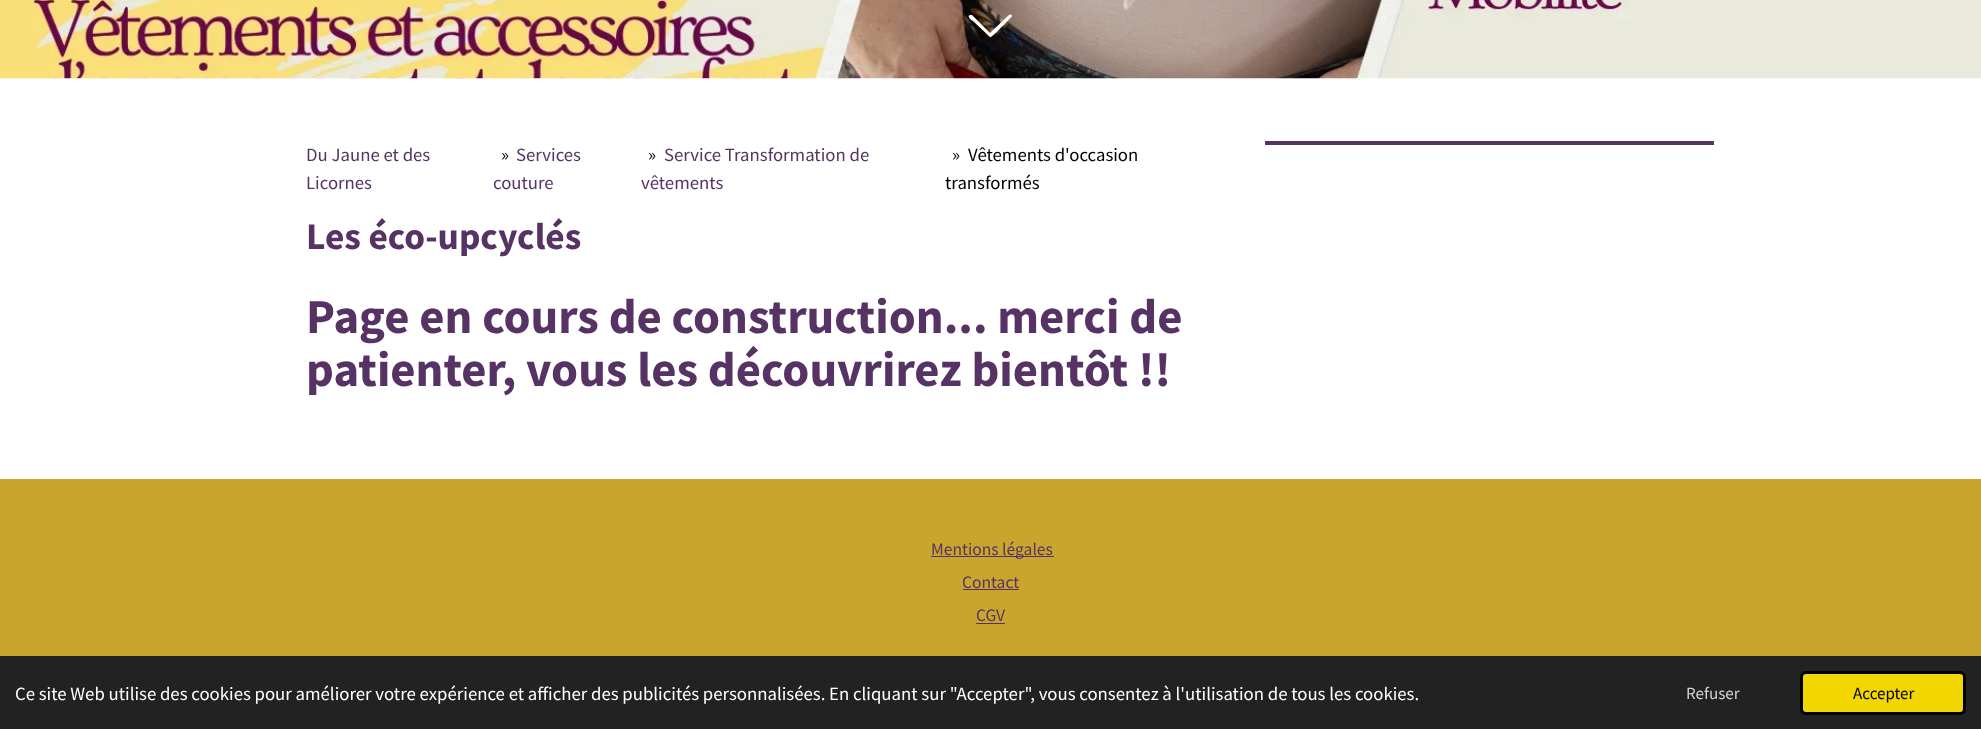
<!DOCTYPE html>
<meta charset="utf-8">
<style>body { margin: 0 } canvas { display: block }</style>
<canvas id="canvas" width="1981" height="729"></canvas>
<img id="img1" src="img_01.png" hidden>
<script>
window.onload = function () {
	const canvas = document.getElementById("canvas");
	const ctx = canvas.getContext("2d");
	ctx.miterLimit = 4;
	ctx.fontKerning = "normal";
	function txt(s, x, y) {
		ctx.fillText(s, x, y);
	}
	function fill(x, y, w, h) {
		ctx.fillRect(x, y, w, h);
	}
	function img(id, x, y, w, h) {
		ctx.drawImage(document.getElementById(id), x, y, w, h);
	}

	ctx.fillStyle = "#FFFFFF";
	fill(0, 0, 1981, 729);
	img("img1", 0, 0, 1981, 79);
	ctx.beginPath();
	ctx.moveTo(972, 15);
	ctx.lineTo(990, 33);
	ctx.lineTo(1009, 15);
	ctx.bezierCurveTo(1010, 14, 1012, 15, 1012, 16);
	ctx.bezierCurveTo(1012, 17, 993, 36, 991, 37);
	ctx.lineTo(990, 37);
	ctx.lineTo(973, 21);
	ctx.bezierCurveTo(972, 21, 966, 16, 970, 15);
	ctx.closePath();
	ctx.fill();
	ctx.fillStyle = "#563364";
	fill(1265, 141, 449, 4);
	ctx.fillStyle = "#C9A52D";
	fill(0, 479, 1981, 177);
	ctx.fillStyle = "#563364";
	fill(931, 556, 123, 1);
	fill(963, 589, 56, 1);
	fill(976, 623, 29, 1);
	ctx.fillStyle = "#222222";
	fill(0, 656, 1981, 73);
	ctx.fillStyle = "#F1D600";
	ctx.beginPath();
	ctx.roundRect(1801.5, 672.5, 163, 41, 4.5);
	ctx.fill();
	ctx.strokeStyle = "#000000";
	ctx.lineWidth = 3;
	ctx.stroke();
	ctx.font = "18.75px Source Sans Pro";
	ctx.fillStyle = "#563364";
	txt("Du Jaune et des", 306, 161);
	txt("Licornes", 306, 189);
	ctx.fillStyle = "#000000";
	txt("»", 501, 161);
	ctx.fillStyle = "#563364";
	txt("Services", 516, 161);
	txt("couture", 493, 189);
	ctx.fillStyle = "#000000";
	txt("»", 648, 161);
	ctx.fillStyle = "#563364";
	txt("Service Transformation de", 664, 161);
	txt("vêtements", 641, 189);
	ctx.fillStyle = "#000000";
	txt("»", 952, 161);
	txt("Vêtements d'occasion", 968, 161);
	txt("transformés", 945, 189);
	ctx.font = "bold 37.5px Source Sans Pro";
	ctx.fillStyle = "#563364";
	txt("Les éco-upcyclés", 306, 249);
	ctx.font = "bold 48.75px Source Sans Pro";
	txt("Page en cours de construction... merci de", 306, 333);
	txt("patienter, vous les découvrirez bientôt !!", 306, 386);
	ctx.font = "17.5px Source Sans Pro";
	txt("Mentions légales", 931, 555);
	txt("Contact", 962, 588);
	txt("CGV", 976, 621);
	ctx.font = "18.75px Source Sans Pro";
	ctx.fillStyle = "#FFFFFF";
	txt("Ce site Web utilise des cookies pour améliorer votre expérience et afficher des publicités personnalisées. En cliquant sur \"Accepter\", vous consentez à l'utilisation de tous les cookies.", 15, 700);
	ctx.font = "17px Source Sans Pro";
	ctx.fillStyle = "#D3D3D3";
	txt("Refuser", 1686, 699);
	ctx.fillStyle = "#000000";
	txt("Accepter", 1853, 699);
};
</script>
